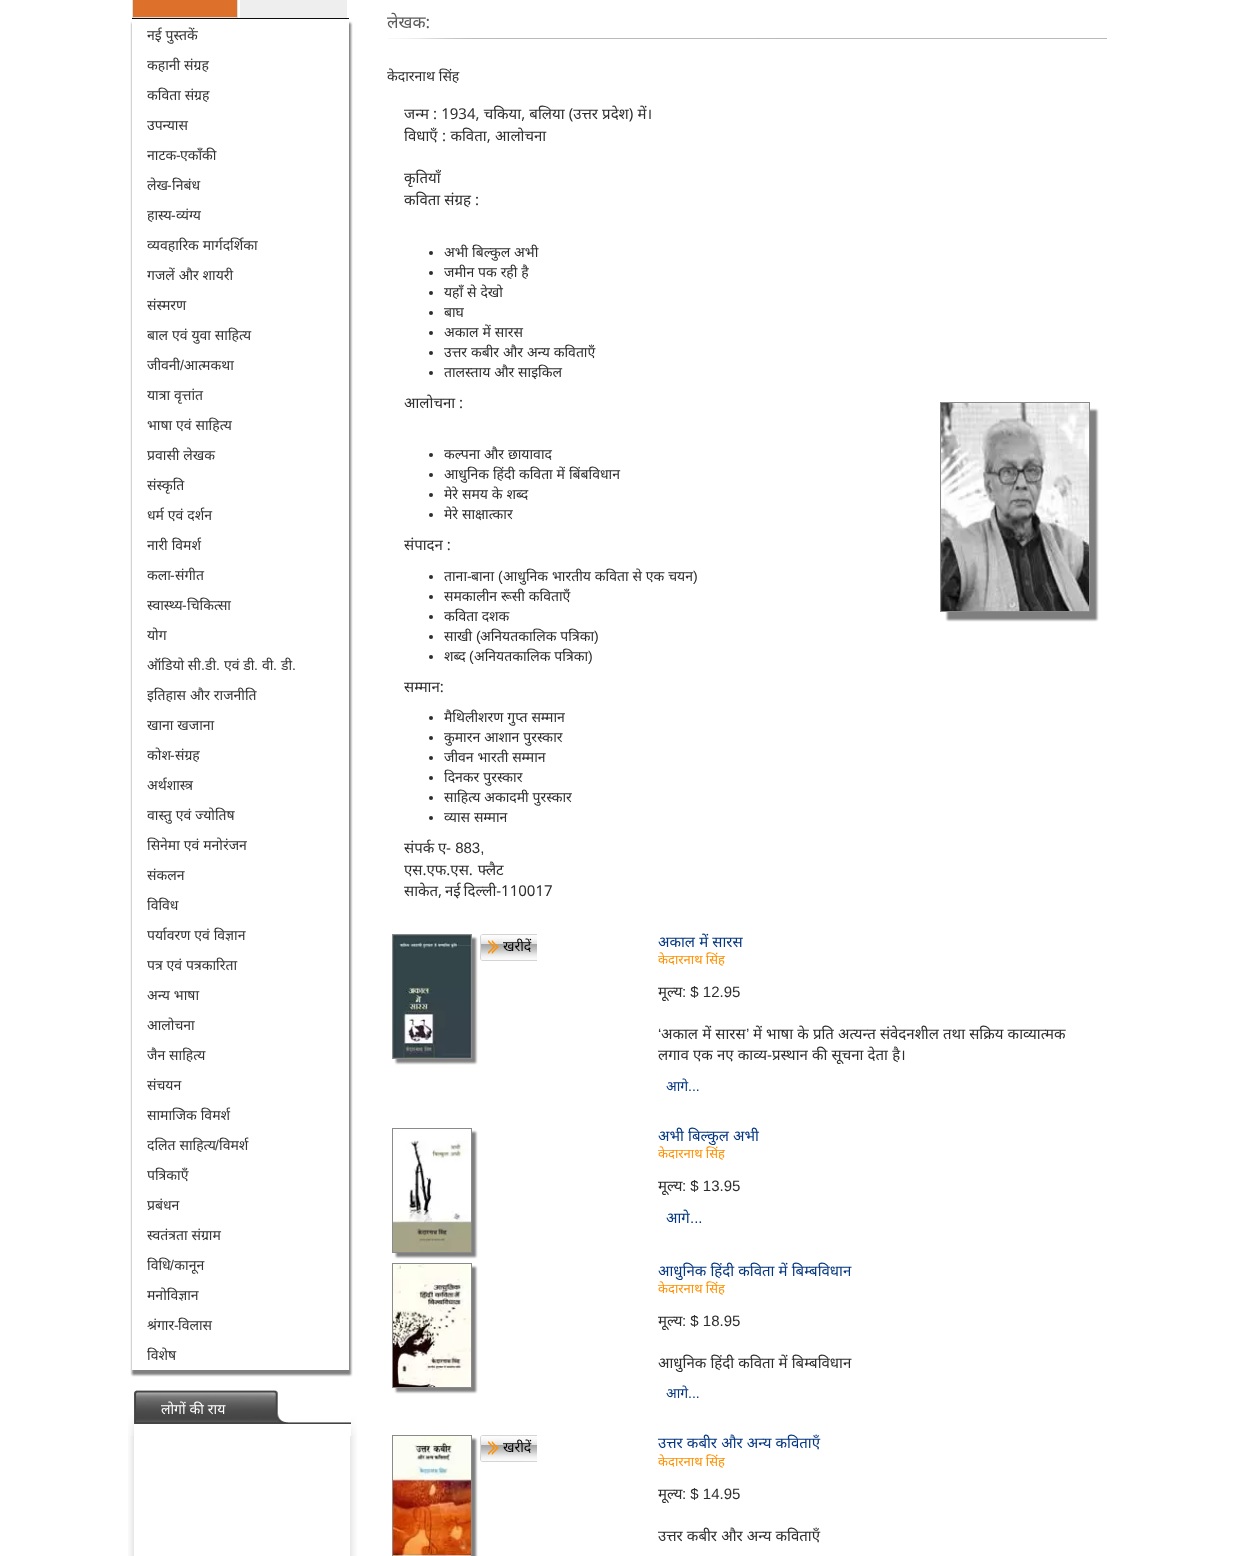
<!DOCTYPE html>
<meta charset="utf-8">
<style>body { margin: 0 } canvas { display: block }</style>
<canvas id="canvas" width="1233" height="1556"></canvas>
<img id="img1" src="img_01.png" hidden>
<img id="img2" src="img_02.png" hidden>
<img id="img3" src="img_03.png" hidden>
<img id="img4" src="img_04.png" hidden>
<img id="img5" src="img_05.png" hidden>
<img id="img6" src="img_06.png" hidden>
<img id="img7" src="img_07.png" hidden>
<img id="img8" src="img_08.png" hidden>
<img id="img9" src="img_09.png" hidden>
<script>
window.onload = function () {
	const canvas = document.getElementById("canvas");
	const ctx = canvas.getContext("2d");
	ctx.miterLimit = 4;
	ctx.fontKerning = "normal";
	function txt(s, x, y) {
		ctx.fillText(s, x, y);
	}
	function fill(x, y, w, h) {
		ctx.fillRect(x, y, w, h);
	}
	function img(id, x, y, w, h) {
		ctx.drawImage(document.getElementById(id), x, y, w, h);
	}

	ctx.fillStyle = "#FFFFFF";
	fill(0, 0, 1233, 1556);
	ctx.fillStyle = "#0E0D0D";
	fill(132, 18, 217, 1);
	ctx.fillStyle = "#DD712C";
	ctx.beginPath();
	ctx.rect(132.5, -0.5, 105, 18);
	ctx.fill();
	ctx.strokeStyle = "#DDDDDD";
	ctx.stroke();
	ctx.fillStyle = "#EEEEEE";
	fill(240, 0, 107, 18);
	ctx.save();
	ctx.beginPath();
	ctx.moveTo(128, 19);
	ctx.lineTo(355, 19);
	ctx.lineTo(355, 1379);
	ctx.lineTo(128, 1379);
	ctx.closePath();
	ctx.moveTo(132, 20);
	ctx.lineTo(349, 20);
	ctx.lineTo(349, 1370);
	ctx.lineTo(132, 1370);
	ctx.closePath();
	ctx.clip("evenodd");
	ctx.fillStyle = "rgba(42, 41, 41, 0.6)";
	ctx.filter = "blur(1px)";
	ctx.beginPath();
	ctx.rect(132, 23, 219, 1352);
	ctx.fill();
	ctx.filter = "none";
	ctx.restore();
	img("img1", 128, 1436, 229, 120);
	img("img2", 128, 1390, 229, 46);
	img("img3", 388, 38, 719, 1);
	ctx.fillStyle = "#2D2D2D";
	ctx.beginPath();
	ctx.arc(431, 253, 2, 0, Math.PI * 2);
	ctx.fill();
	ctx.beginPath();
	ctx.arc(431, 273, 2, 0, Math.PI * 2);
	ctx.fill();
	ctx.beginPath();
	ctx.arc(431, 293, 2, 0, Math.PI * 2);
	ctx.fill();
	ctx.beginPath();
	ctx.arc(431, 313, 2, 0, Math.PI * 2);
	ctx.fill();
	ctx.beginPath();
	ctx.arc(431, 333, 2, 0, Math.PI * 2);
	ctx.fill();
	ctx.beginPath();
	ctx.arc(431, 353, 2, 0, Math.PI * 2);
	ctx.fill();
	ctx.beginPath();
	ctx.arc(431, 373, 2, 0, Math.PI * 2);
	ctx.fill();
	ctx.beginPath();
	ctx.arc(431, 455, 2, 0, Math.PI * 2);
	ctx.fill();
	ctx.beginPath();
	ctx.arc(431, 475, 2, 0, Math.PI * 2);
	ctx.fill();
	ctx.beginPath();
	ctx.arc(431, 495, 2, 0, Math.PI * 2);
	ctx.fill();
	ctx.beginPath();
	ctx.arc(431, 515, 2, 0, Math.PI * 2);
	ctx.fill();
	ctx.beginPath();
	ctx.arc(431, 577, 2, 0, Math.PI * 2);
	ctx.fill();
	ctx.beginPath();
	ctx.arc(431, 597, 2, 0, Math.PI * 2);
	ctx.fill();
	ctx.beginPath();
	ctx.arc(431, 617, 2, 0, Math.PI * 2);
	ctx.fill();
	ctx.beginPath();
	ctx.arc(431, 637, 2, 0, Math.PI * 2);
	ctx.fill();
	ctx.beginPath();
	ctx.arc(431, 657, 2, 0, Math.PI * 2);
	ctx.fill();
	ctx.beginPath();
	ctx.arc(431, 718, 2, 0, Math.PI * 2);
	ctx.fill();
	ctx.beginPath();
	ctx.arc(431, 738, 2, 0, Math.PI * 2);
	ctx.fill();
	ctx.beginPath();
	ctx.arc(431, 758, 2, 0, Math.PI * 2);
	ctx.fill();
	ctx.beginPath();
	ctx.arc(431, 778, 2, 0, Math.PI * 2);
	ctx.fill();
	ctx.beginPath();
	ctx.arc(431, 798, 2, 0, Math.PI * 2);
	ctx.fill();
	ctx.beginPath();
	ctx.arc(431, 818, 2, 0, Math.PI * 2);
	ctx.fill();
	ctx.fillStyle = "rgba(42, 41, 41, 0.6)";
	ctx.filter = "blur(1px)";
	ctx.beginPath();
	ctx.rect(947, 410, 150, 210);
	ctx.fill();
	ctx.filter = "none";
	ctx.strokeStyle = "#8A8A8A";
	ctx.strokeRect(940.5, 402.5, 149, 209);
	img("img4", 941, 403, 148, 208);
	ctx.filter = "blur(1px)";
	ctx.beginPath();
	ctx.rect(396, 938, 80, 125);
	ctx.fill();
	ctx.filter = "none";
	ctx.strokeRect(392.5, 934.5, 79, 124);
	img("img5", 393, 935, 78, 123);
	img("img6", 480, 934, 57, 27);
	ctx.save();
	ctx.beginPath();
	ctx.moveTo(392, 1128);
	ctx.lineTo(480, 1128);
	ctx.lineTo(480, 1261);
	ctx.lineTo(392, 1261);
	ctx.closePath();
	ctx.moveTo(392, 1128);
	ctx.lineTo(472, 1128);
	ctx.lineTo(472, 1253);
	ctx.lineTo(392, 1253);
	ctx.closePath();
	ctx.clip("evenodd");
	ctx.filter = "blur(1px)";
	ctx.beginPath();
	ctx.rect(396, 1132, 80, 125);
	ctx.fill();
	ctx.filter = "none";
	ctx.restore();
	ctx.strokeRect(392.5, 1128.5, 79, 124);
	img("img7", 393, 1140, 78, 112);
	ctx.filter = "blur(1px)";
	ctx.beginPath();
	ctx.rect(396, 1267, 80, 125);
	ctx.fill();
	ctx.filter = "none";
	ctx.strokeRect(392.5, 1263.5, 79, 124);
	img("img8", 393, 1264, 78, 123);
	ctx.filter = "blur(1px)";
	ctx.beginPath();
	ctx.rect(396, 1439, 80, 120);
	ctx.fill();
	ctx.filter = "none";
	ctx.strokeRect(392.5, 1435.5, 79, 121);
	img("img9", 393, 1436, 78, 120);
	img("img6", 480, 1435, 57, 27);
	ctx.wordSpacing = "0.25px";
	ctx.font = "14px Noto Sans";
	ctx.fillStyle = "#333333";
	txt("नई पुस्तकें", 147, 40);
	txt("कहानी संग्रह", 147, 70);
	txt("कविता संग्रह", 147, 100);
	ctx.wordSpacing = "0px";
	txt("उपन्यास", 147, 130);
	txt("नाटक", 147, 160);
	ctx.font = "14px Liberation Sans";
	txt("-", 176, 160);
	ctx.font = "14px Noto Sans";
	txt("एकाँकी", 180, 160);
	txt("लेख", 147, 190);
	ctx.font = "14px Liberation Sans";
	txt("-", 167, 190);
	ctx.font = "14px Noto Sans";
	txt("निबंध", 172, 190);
	txt("हास्य", 147, 220);
	ctx.font = "14px Liberation Sans";
	txt("-", 171, 220);
	ctx.font = "14px Noto Sans";
	txt("व्यंग्य", 176, 220);
	ctx.wordSpacing = "0.25px";
	txt("व्यवहारिक मार्गदर्शिका", 147, 250);
	txt("गजलें और शायरी", 147, 280);
	ctx.wordSpacing = "0px";
	txt("संस्मरण", 147, 310);
	ctx.wordSpacing = "0.25px";
	txt("बाल एवं युवा साहित्य", 147, 340);
	ctx.wordSpacing = "0px";
	txt("जीवनी आत्मकथा", 147, 370);
	ctx.font = "14px Liberation Sans";
	txt("/", 180, 370);
	ctx.wordSpacing = "0.25px";
	ctx.font = "14px Noto Sans";
	txt("यात्रा वृत्तांत", 147, 400);
	txt("भाषा एवं साहित्य", 147, 430);
	txt("प्रवासी लेखक", 147, 460);
	ctx.wordSpacing = "0px";
	txt("संस्कृति", 147, 490);
	ctx.wordSpacing = "0.25px";
	txt("धर्म एवं दर्शन", 147, 520);
	txt("नारी विमर्श", 147, 550);
	ctx.wordSpacing = "0px";
	txt("कला", 147, 580);
	ctx.font = "14px Liberation Sans";
	txt("-", 170, 580);
	ctx.font = "14px Noto Sans";
	txt("संगीत", 175, 580);
	txt("स्वास्थ्य", 147, 610);
	ctx.font = "14px Liberation Sans";
	txt("-", 182, 610);
	ctx.font = "14px Noto Sans";
	txt("चिकित्सा", 187, 610);
	txt("योग", 147, 640);
	txt("ऑडियो सी", 147, 670);
	txt("एवं डी", 224, 670);
	txt("वी", 262, 670);
	txt("डी", 281, 670);
	ctx.font = "14px Liberation Sans";
	txt(".", 201, 670);
	ctx.font = "14px Noto Sans";
	txt("डी", 205, 670);
	ctx.font = "14px Liberation Sans";
	txt(".", 216, 670);
	txt(".", 254, 670);
	txt(".", 273, 670);
	txt(".", 292, 670);
	ctx.wordSpacing = "0.25px";
	ctx.font = "14px Noto Sans";
	txt("इतिहास और राजनीति", 147, 700);
	txt("खाना खजाना", 147, 730);
	ctx.wordSpacing = "0px";
	txt("कोश", 147, 760);
	ctx.font = "14px Liberation Sans";
	txt("-", 170, 760);
	ctx.font = "14px Noto Sans";
	txt("संग्रह", 175, 760);
	txt("अर्थशास्त्र", 147, 790);
	ctx.wordSpacing = "0.25px";
	txt("वास्तु एवं ज्योतिष", 147, 820);
	txt("सिनेमा एवं मनोरंजन", 147, 850);
	ctx.wordSpacing = "0px";
	txt("संकलन", 147, 880);
	txt("विविध", 147, 910);
	ctx.wordSpacing = "0.25px";
	txt("पर्यावरण एवं विज्ञान", 147, 940);
	txt("पत्र एवं पत्रकारिता", 147, 970);
	txt("अन्य भाषा", 147, 1000);
	ctx.wordSpacing = "0px";
	txt("आलोचना", 147, 1030);
	ctx.wordSpacing = "0.25px";
	txt("जैन साहित्य", 147, 1060);
	ctx.wordSpacing = "0px";
	txt("संचयन", 147, 1090);
	ctx.wordSpacing = "0.25px";
	txt("सामाजिक विमर्श", 147, 1120);
	txt("दलित साहित्य", 147, 1150);
	ctx.wordSpacing = "0px";
	ctx.font = "14px Liberation Sans";
	txt("/", 215, 1150);
	ctx.font = "14px Noto Sans";
	txt("विमर्श", 219, 1150);
	txt("पत्रिकाएँ", 147, 1180);
	txt("प्रबंधन", 147, 1210);
	ctx.wordSpacing = "0.25px";
	txt("स्वतंत्रता संग्राम", 147, 1240);
	ctx.wordSpacing = "0px";
	txt("विधि कानून", 147, 1270);
	ctx.font = "14px Liberation Sans";
	txt("/", 170, 1270);
	ctx.font = "14px Noto Sans";
	txt("मनोविज्ञान", 147, 1300);
	txt("श्रंगार", 147, 1330);
	ctx.font = "14px Liberation Sans";
	txt("-", 174, 1330);
	ctx.font = "14px Noto Sans";
	txt("विलास", 178, 1330);
	txt("विशेष", 147, 1360);
	ctx.wordSpacing = "0.25px";
	ctx.fillStyle = "#FFFFFF";
	txt("लोगों की राय", 161, 1414);
	ctx.wordSpacing = "0px";
	ctx.font = "17px Noto Sans";
	ctx.fillStyle = "#5A5A5A";
	txt("लेखक:", 387, 28);
	ctx.wordSpacing = "0.25px";
	ctx.font = "14px Noto Sans";
	ctx.fillStyle = "#2D2D2D";
	txt("केदारनाथ सिंह", 387, 81);
	ctx.font = "15px Noto Sans";
	txt("जन्म : 1934, चकिया, बलिया (उत्तर प्रदेश) में।", 404, 119);
	ctx.wordSpacing = "0.5px";
	txt("विधाएँ : कविता, आलोचना", 404, 141);
	ctx.wordSpacing = "0px";
	txt("कृतियाँ", 404, 183);
	ctx.wordSpacing = "0.25px";
	txt("कविता संग्रह :", 404, 205);
	ctx.font = "14px Noto Sans";
	txt("अभी बिल्कुल अभी", 444, 257);
	txt("जमीन पक रही है", 444, 277);
	txt("यहाँ से देखो", 444, 297);
	ctx.wordSpacing = "0px";
	txt("बाघ", 444, 317);
	ctx.wordSpacing = "0.25px";
	txt("अकाल में सारस", 444, 337);
	txt("उत्तर कबीर और अन्य कविताएँ", 444, 357);
	txt("तालस्ताय और साइकिल", 444, 377);
	ctx.wordSpacing = "0px";
	ctx.font = "15px Noto Sans";
	txt("आलोचना :", 404, 408);
	ctx.wordSpacing = "0.25px";
	ctx.font = "14px Noto Sans";
	txt("कल्पना और छायावाद", 444, 459);
	txt("आधुनिक हिंदी कविता में बिंबविधान", 444, 479);
	txt("मेरे समय के शब्द", 444, 499);
	txt("मेरे साक्षात्कार", 444, 519);
	ctx.wordSpacing = "0px";
	ctx.font = "15px Noto Sans";
	txt("संपादन :", 404, 550);
	ctx.font = "14px Noto Sans";
	txt("ताना", 444, 581);
	ctx.font = "14px Liberation Sans";
	txt("-", 467, 581);
	ctx.font = "14px Noto Sans";
	txt("बाना", 471, 581);
	ctx.font = "14px Liberation Sans";
	txt("(", 498, 581);
	ctx.wordSpacing = "0.25px";
	ctx.font = "14px Noto Sans";
	txt("आधुनिक भारतीय कविता से एक चयन", 503, 581);
	ctx.wordSpacing = "0px";
	ctx.font = "14px Liberation Sans";
	txt(")", 693, 581);
	ctx.wordSpacing = "0.25px";
	ctx.font = "14px Noto Sans";
	txt("समकालीन रूसी कविताएँ", 444, 601);
	txt("कविता दशक", 444, 621);
	ctx.wordSpacing = "0px";
	txt("साखी", 444, 641);
	ctx.font = "14px Liberation Sans";
	txt("(", 476, 641);
	ctx.wordSpacing = "0.25px";
	ctx.font = "14px Noto Sans";
	txt("अनियतकालिक पत्रिका", 480, 641);
	ctx.wordSpacing = "0px";
	ctx.font = "14px Liberation Sans";
	txt(")", 594, 641);
	ctx.font = "14px Noto Sans";
	txt("शब्द", 444, 661);
	ctx.font = "14px Liberation Sans";
	txt("(", 469, 661);
	ctx.wordSpacing = "0.25px";
	ctx.font = "14px Noto Sans";
	txt("अनियतकालिक पत्रिका", 474, 661);
	ctx.wordSpacing = "0px";
	ctx.font = "14px Liberation Sans";
	txt(")", 588, 661);
	ctx.font = "15px Noto Sans";
	txt("सम्मान:", 404, 692);
	ctx.wordSpacing = "0.25px";
	ctx.font = "14px Noto Sans";
	txt("मैथिलीशरण गुप्त सम्मान", 444, 722);
	txt("कुमारन आशान पुरस्कार", 444, 742);
	txt("जीवन भारती सम्मान", 444, 762);
	txt("दिनकर पुरस्कार", 444, 782);
	txt("साहित्य अकादमी पुरस्कार", 444, 802);
	txt("व्यास सम्मान", 444, 822);
	ctx.wordSpacing = "0px";
	ctx.font = "15px Noto Sans";
	txt("संपर्क ए", 404, 853);
	ctx.font = "15px Liberation Sans";
	txt("- 883,", 446, 853);
	ctx.wordSpacing = "1px";
	ctx.font = "15px Noto Sans";
	txt("एस.एफ.एस. फ्लैट", 404, 875);
	ctx.wordSpacing = "-1px";
	txt("साकेत, नई दिल्ली-110017", 404, 896);
	ctx.wordSpacing = "0px";
	ctx.font = "14px Noto Sans";
	ctx.fillStyle = "#000000";
	txt("खरीदें", 503, 951);
	ctx.wordSpacing = "0.25px";
	ctx.font = "15px Noto Sans";
	ctx.fillStyle = "#053680";
	txt("अकाल में सारस", 658, 947);
	ctx.wordSpacing = "0px";
	ctx.font = "13px Noto Sans";
	ctx.fillStyle = "#FF9000";
	txt("केदारनाथ सिंह", 658, 964);
	ctx.font = "15px Noto Sans";
	ctx.fillStyle = "#2D2D2D";
	txt("मूल्य", 658, 997);
	ctx.font = "15px Liberation Sans";
	txt(": $ 12.95", 682, 997);
	txt("‘", 658, 1039);
	ctx.wordSpacing = "0.25px";
	ctx.font = "15px Noto Sans";
	txt("अकाल में सारस", 661, 1039);
	ctx.wordSpacing = "0px";
	ctx.font = "15px Liberation Sans";
	txt("’", 746, 1039);
	ctx.wordSpacing = "0.25px";
	ctx.font = "15px Noto Sans";
	txt("में भाषा के प्रति अत्यन्त संवेदनशील तथा सक्रिय काव्यात्मक", 753, 1039);
	txt("लगाव एक नए काव्य", 658, 1060);
	ctx.wordSpacing = "0px";
	ctx.font = "15px Liberation Sans";
	txt("-", 767, 1060);
	ctx.wordSpacing = "0.25px";
	ctx.font = "15px Noto Sans";
	txt("प्रस्थान की सूचना देता है।", 772, 1060);
	ctx.wordSpacing = "0px";
	ctx.font = "14px Noto Sans";
	ctx.fillStyle = "#053680";
	txt("आगे", 666, 1091);
	ctx.font = "14px Liberation Sans";
	txt("...", 688, 1091);
	ctx.wordSpacing = "0.25px";
	ctx.font = "15px Noto Sans";
	txt("अभी बिल्कुल अभी", 658, 1141);
	ctx.wordSpacing = "0px";
	ctx.font = "13px Noto Sans";
	ctx.fillStyle = "#FF9000";
	txt("केदारनाथ सिंह", 658, 1158);
	ctx.font = "15px Noto Sans";
	ctx.fillStyle = "#2D2D2D";
	txt("मूल्य", 658, 1191);
	ctx.font = "15px Liberation Sans";
	txt(": $ 13.95", 682, 1191);
	ctx.font = "15px Noto Sans";
	ctx.fillStyle = "#053680";
	txt("आगे", 666, 1223);
	ctx.font = "15px Liberation Sans";
	txt("...", 690, 1223);
	ctx.wordSpacing = "0.25px";
	ctx.font = "15px Noto Sans";
	txt("आधुनिक हिंदी कविता में बिम्बविधान", 658, 1276);
	ctx.wordSpacing = "0px";
	ctx.font = "13px Noto Sans";
	ctx.fillStyle = "#FF9000";
	txt("केदारनाथ सिंह", 658, 1293);
	ctx.font = "15px Noto Sans";
	ctx.fillStyle = "#2D2D2D";
	txt("मूल्य", 658, 1326);
	ctx.font = "15px Liberation Sans";
	txt(": $ 18.95", 682, 1326);
	ctx.wordSpacing = "0.25px";
	ctx.font = "15px Noto Sans";
	txt("आधुनिक हिंदी कविता में बिम्बविधान", 658, 1368);
	ctx.wordSpacing = "0px";
	ctx.font = "14px Noto Sans";
	ctx.fillStyle = "#053680";
	txt("आगे", 666, 1398);
	ctx.font = "14px Liberation Sans";
	txt("...", 688, 1398);
	ctx.font = "14px Noto Sans";
	ctx.fillStyle = "#000000";
	txt("खरीदें", 503, 1452);
	ctx.wordSpacing = "0.25px";
	ctx.font = "15px Noto Sans";
	ctx.fillStyle = "#053680";
	txt("उत्तर कबीर और अन्य कविताएँ", 658, 1448);
	ctx.wordSpacing = "0px";
	ctx.font = "13px Noto Sans";
	ctx.fillStyle = "#FF9000";
	txt("केदारनाथ सिंह", 658, 1466);
	ctx.font = "15px Noto Sans";
	ctx.fillStyle = "#2D2D2D";
	txt("मूल्य", 658, 1499);
	ctx.font = "15px Liberation Sans";
	txt(": $ 14.95", 682, 1499);
	ctx.wordSpacing = "0.25px";
	ctx.font = "15px Noto Sans";
	txt("उत्तर कबीर और अन्य कविताएँ", 658, 1541);
};
</script>
